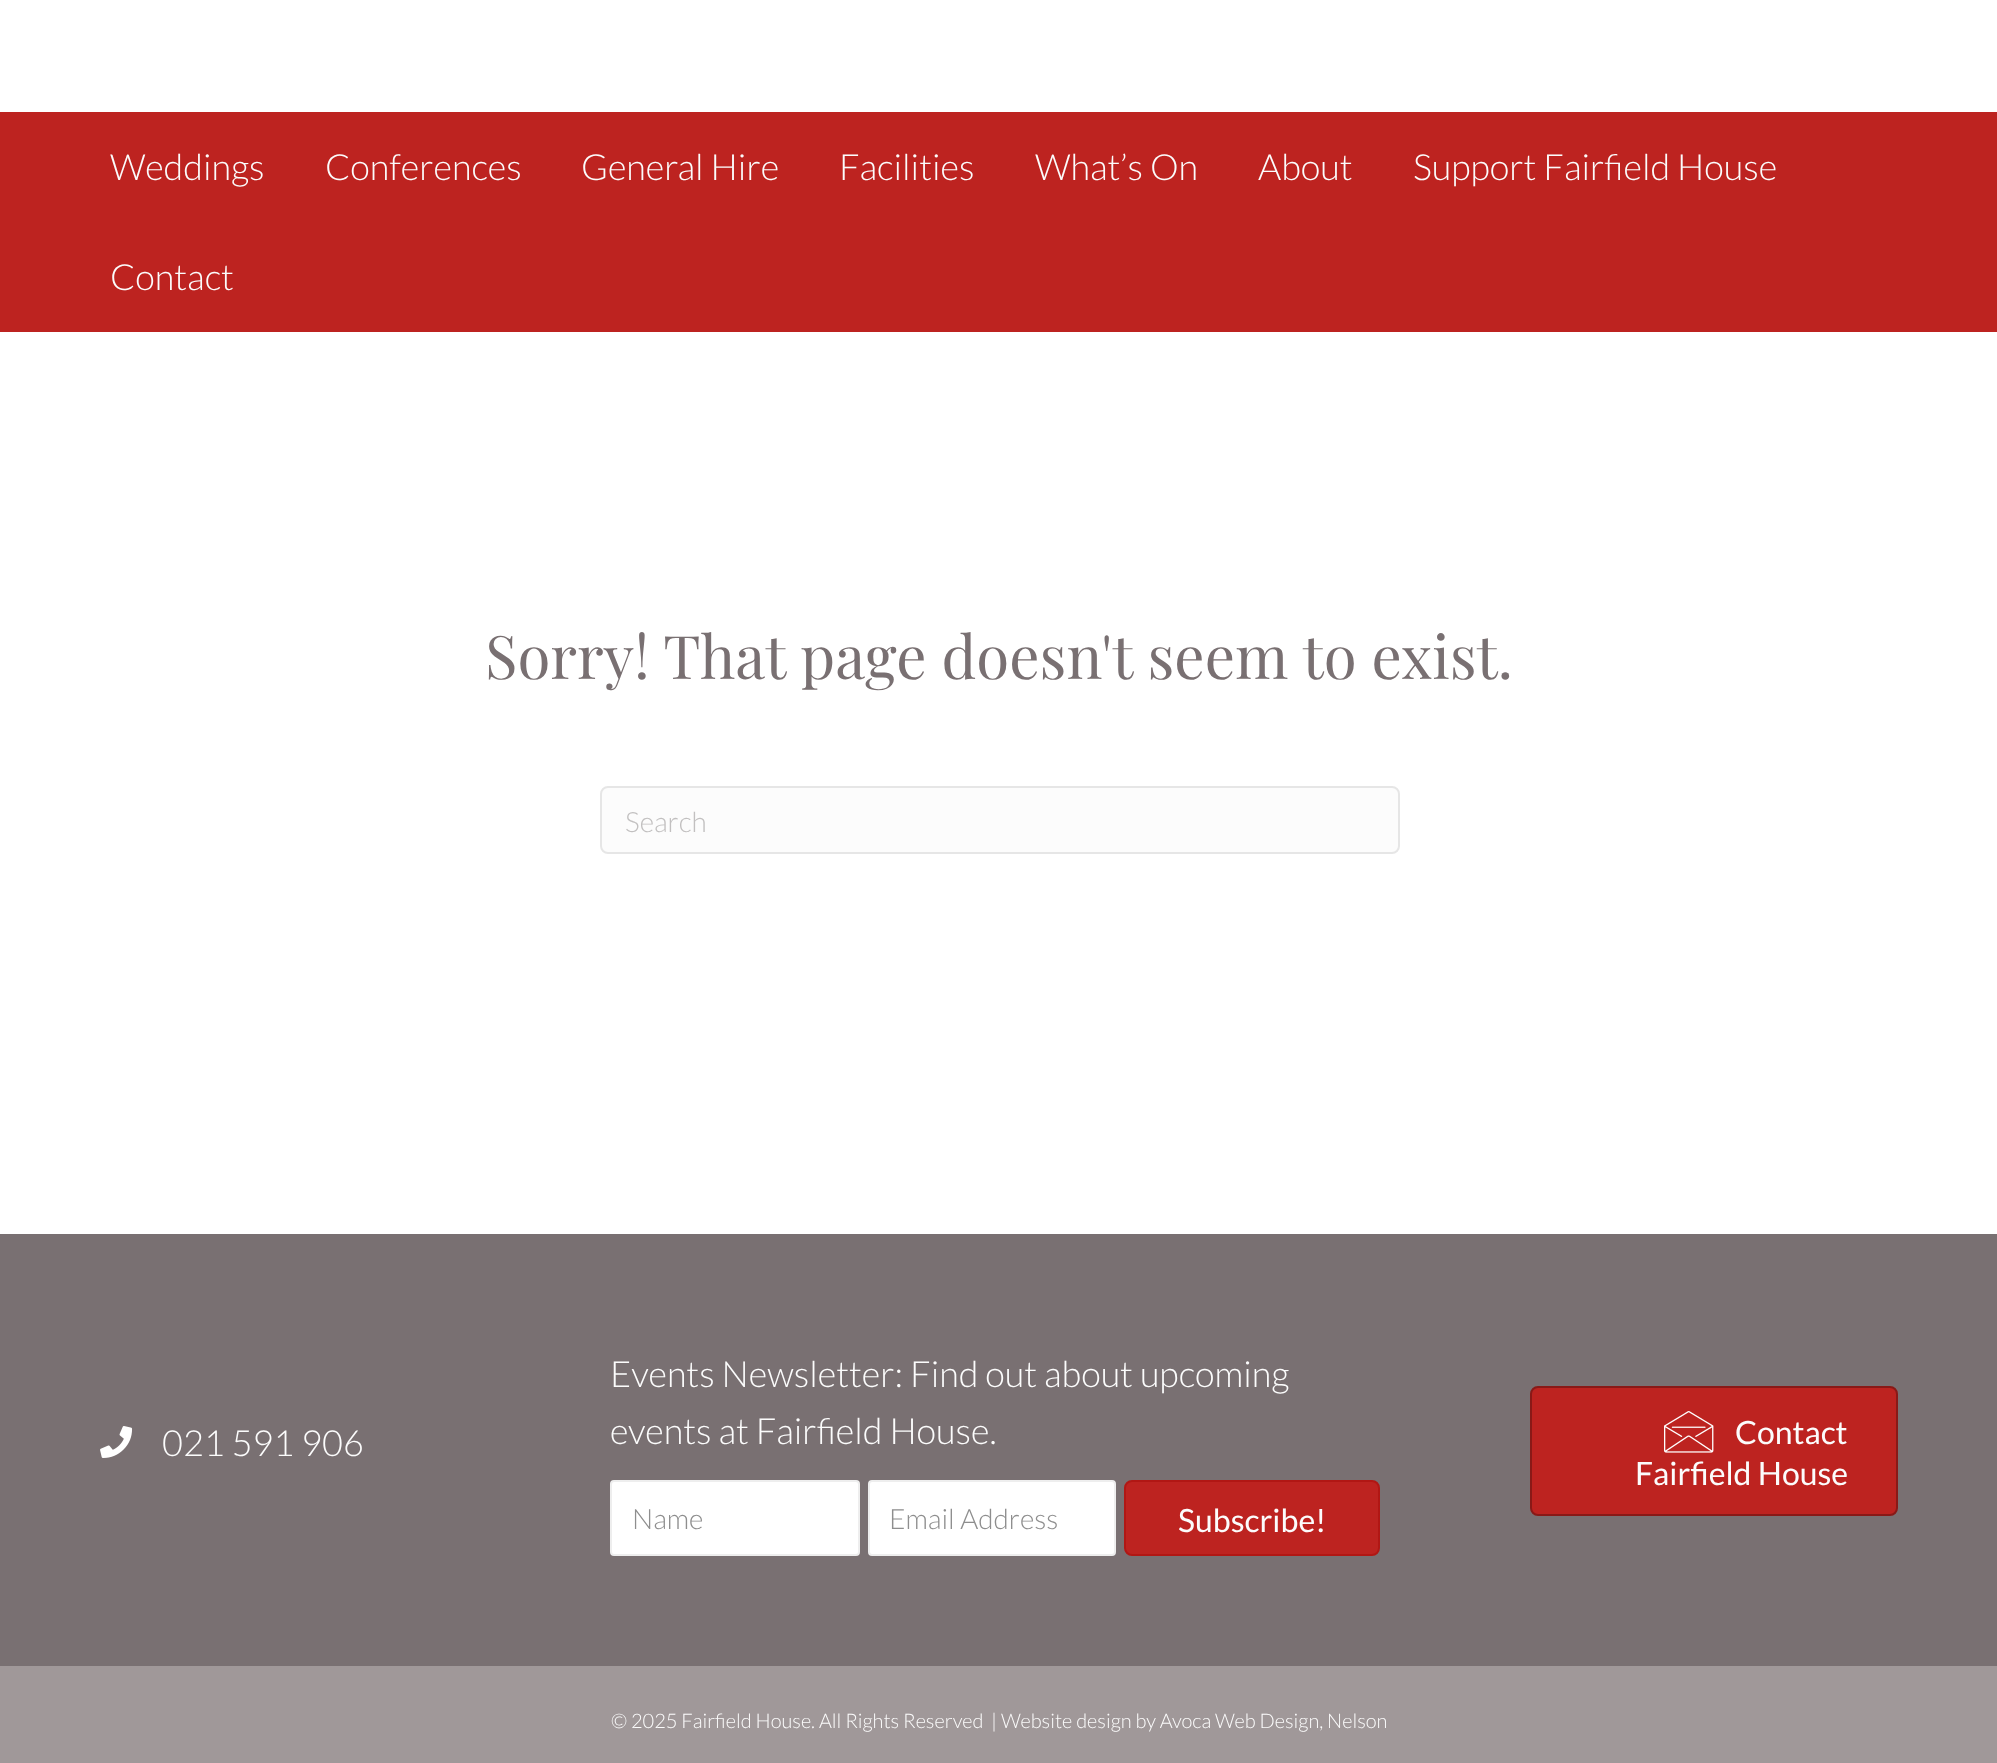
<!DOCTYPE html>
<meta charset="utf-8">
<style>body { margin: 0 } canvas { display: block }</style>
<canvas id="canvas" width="1997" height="1763"></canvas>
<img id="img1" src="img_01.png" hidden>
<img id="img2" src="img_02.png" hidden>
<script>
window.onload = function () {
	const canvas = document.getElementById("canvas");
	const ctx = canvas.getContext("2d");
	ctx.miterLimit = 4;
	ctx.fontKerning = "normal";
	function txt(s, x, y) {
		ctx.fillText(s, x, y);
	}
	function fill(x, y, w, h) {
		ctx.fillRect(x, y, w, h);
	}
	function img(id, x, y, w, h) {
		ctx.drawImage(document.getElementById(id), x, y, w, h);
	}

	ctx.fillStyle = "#FFFFFF";
	fill(0, 0, 1997, 1763);
	ctx.fillStyle = "#BD2320";
	fill(0, 112, 1997, 220);
	ctx.fillStyle = "#FCFCFC";
	ctx.beginPath();
	ctx.roundRect(601, 787, 798, 66, 7);
	ctx.fill();
	ctx.strokeStyle = "#E6E6E6";
	ctx.lineWidth = 2;
	ctx.stroke();
	ctx.fillStyle = "#797072";
	fill(0, 1234, 1997, 432);
	img("img1", 100, 1426, 33, 32);
	ctx.fillStyle = "#FFFFFF";
	ctx.beginPath();
	ctx.roundRect(611, 1481, 248, 74, 3);
	ctx.fill();
	ctx.strokeStyle = "#EEEEEE";
	ctx.stroke();
	ctx.beginPath();
	ctx.roundRect(869, 1481, 246, 74, 3);
	ctx.fill();
	ctx.stroke();
	ctx.fillStyle = "#BD2320";
	ctx.beginPath();
	ctx.roundRect(1125, 1481, 254, 74, 7);
	ctx.fill();
	ctx.strokeStyle = "#B11714";
	ctx.stroke();
	ctx.beginPath();
	ctx.roundRect(1531, 1387, 366, 128, 7);
	ctx.fill();
	ctx.strokeStyle = "#891917";
	ctx.stroke();
	img("img2", 1664, 1411, 50, 42);
	ctx.fillStyle = "#A09899";
	fill(0, 1666, 1997, 97);
	ctx.font = "300 36px Lato";
	ctx.fillStyle = "#FCFCFC";
	txt("Weddings", 110, 180);
	txt("Conferences", 325, 180);
	txt("General Hire", 581, 180);
	txt("Facilities", 839, 180);
	txt("What’s On", 1035, 180);
	txt("About", 1258, 180);
	txt("Support Fairfield House", 1413, 180);
	txt("Contact", 110, 290);
	ctx.font = "60px Playfair Display";
	ctx.fillStyle = "#797072";
	txt("Sorry! That page doesn't seem to exist.", 485, 679);
	ctx.font = "300 28px Lato";
	ctx.fillStyle = "#C2C0C0";
	txt("Search", 625, 832);
	ctx.font = "300 36px Lato";
	ctx.fillStyle = "#FCFCFC";
	txt("021 591 906", 162, 1456);
	txt("Events Newsletter: Find out about upcoming", 610, 1387);
	txt("events at Fairfield House.", 610, 1444);
	ctx.font = "300 28px Lato";
	ctx.fillStyle = "#8E8E8E";
	txt("Name", 632, 1529);
	txt("Email Address", 889, 1529);
	ctx.font = "32px Lato";
	ctx.fillStyle = "#FCFCFC";
	txt("Subscribe!", 1178, 1532);
	txt("Contact", 1735, 1444);
	txt("Fairfield House", 1635, 1485);
	ctx.font = "300 20px Lato";
	txt("© 2025 Fairfield House. All Rights Reserved  | Website design by Avoca Web Design, Nelson", 611, 1728);
};
</script>
